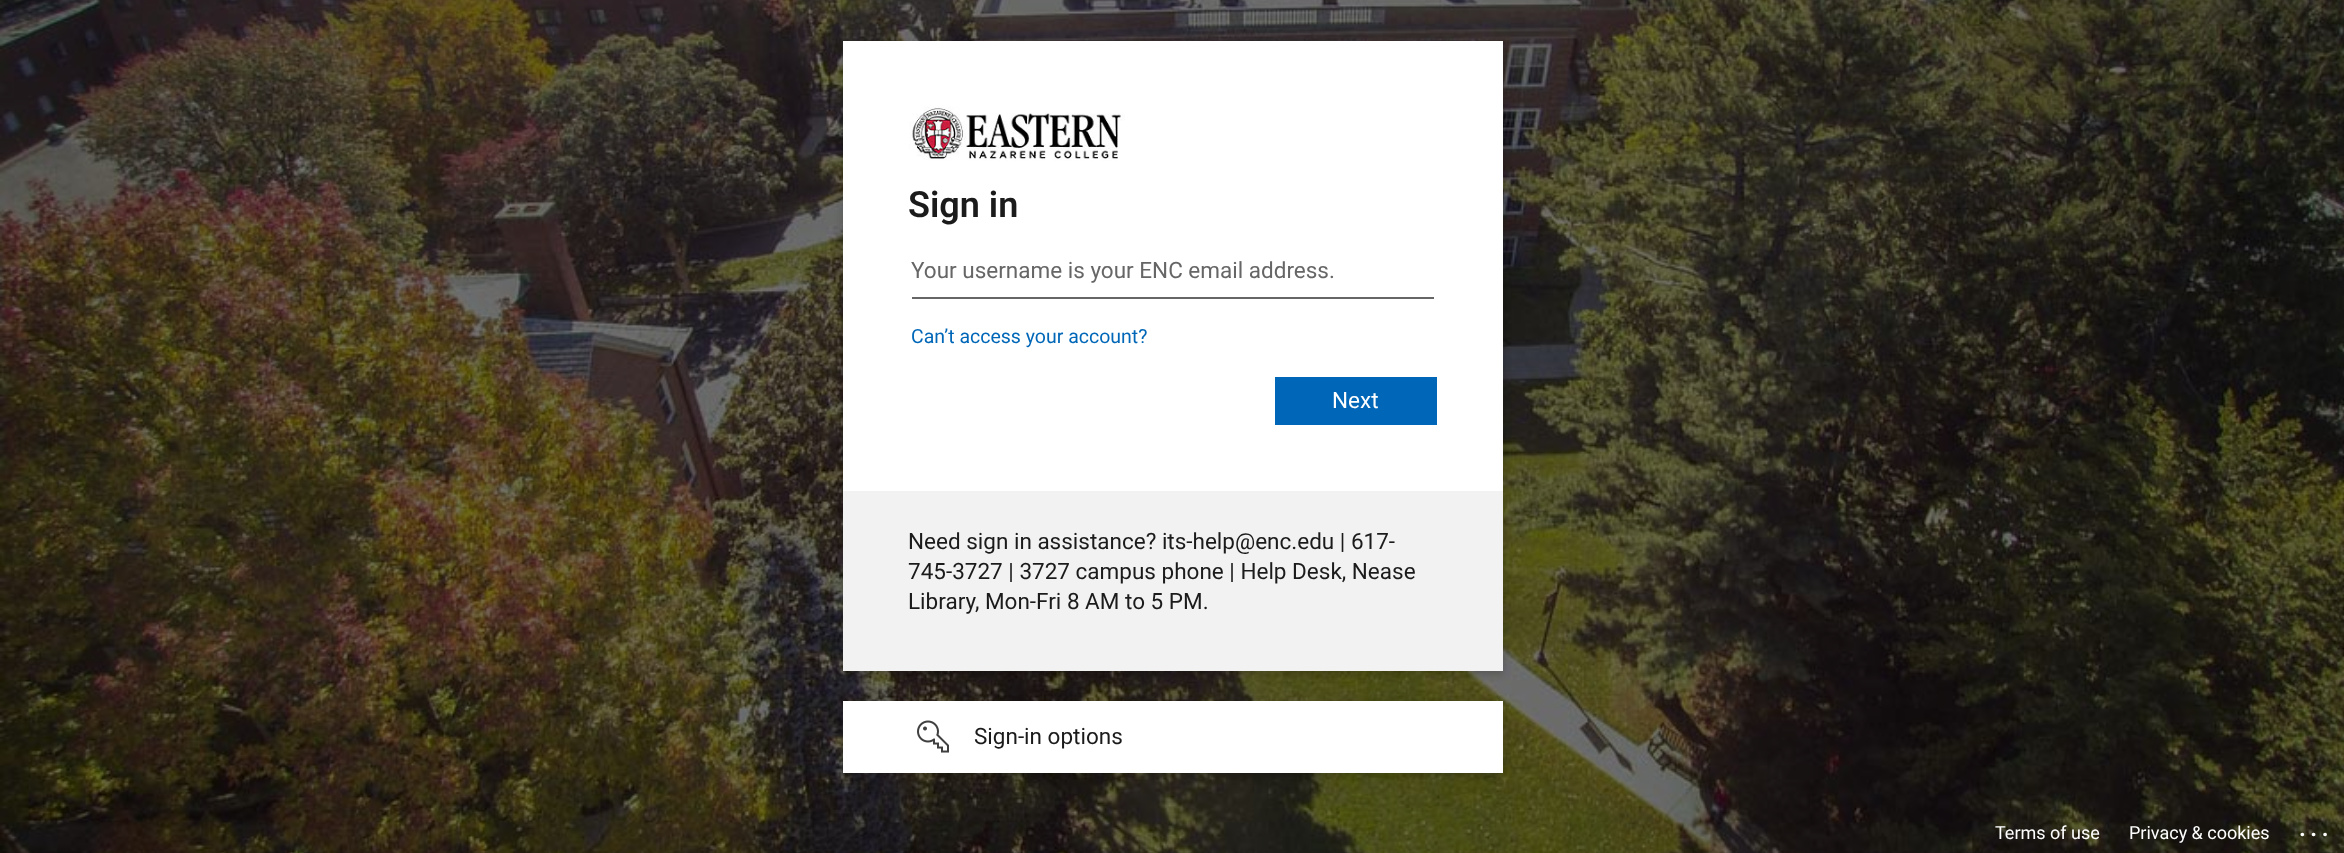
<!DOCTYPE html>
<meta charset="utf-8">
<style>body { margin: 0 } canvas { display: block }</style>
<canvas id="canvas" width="2344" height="853"></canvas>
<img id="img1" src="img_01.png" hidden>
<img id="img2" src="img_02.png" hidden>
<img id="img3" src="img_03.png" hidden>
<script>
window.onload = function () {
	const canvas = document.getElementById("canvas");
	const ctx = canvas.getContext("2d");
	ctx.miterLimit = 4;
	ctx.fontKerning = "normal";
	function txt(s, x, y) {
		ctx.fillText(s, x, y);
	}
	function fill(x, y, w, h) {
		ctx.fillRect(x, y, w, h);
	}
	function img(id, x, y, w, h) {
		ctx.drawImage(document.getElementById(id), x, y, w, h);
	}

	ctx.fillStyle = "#FFFFFF";
	fill(0, 0, 2344, 853);
	img("img1", 0, 0, 2344, 853);
	ctx.fillStyle = "rgba(0, 0, 0, 0.2)";
	ctx.filter = "blur(4.5px)";
	ctx.beginPath();
	ctx.rect(843, 44, 660, 630);
	ctx.fill();
	ctx.filter = "none";
	ctx.fillStyle = "#FFFFFF";
	fill(843, 41, 660, 450);
	img("img2", 909, 106, 216, 55);
	ctx.fillStyle = "#666666";
	fill(912, 297, 522, 2);
	ctx.fillStyle = "#0067B8";
	fill(1275, 377, 162, 48);
	ctx.fillStyle = "#F2F2F2";
	fill(843, 491, 660, 180);
	ctx.fillStyle = "rgba(0, 0, 0, 0.2)";
	ctx.filter = "blur(4.5px)";
	ctx.beginPath();
	ctx.rect(843, 704, 660, 72);
	ctx.fill();
	ctx.filter = "none";
	ctx.fillStyle = "#FFFFFF";
	fill(843, 701, 660, 72);
	img("img3", 917, 720, 32, 33);
	ctx.font = "600 36px Roboto";
	ctx.fillStyle = "#1B1B1B";
	txt("Sign in", 908, 217);
	ctx.font = "22.5px Roboto";
	ctx.fillStyle = "#666666";
	txt("Your username is your ENC email address.", 911, 278);
	ctx.font = "19.5px Roboto";
	ctx.fillStyle = "#0067B8";
	txt("Can’t access your account?", 911, 343);
	ctx.font = "22.5px Roboto";
	ctx.fillStyle = "#FFFFFF";
	txt("Next", 1332, 408);
	ctx.fillStyle = "#1B1B1B";
	txt("Need sign in assistance? its-help@enc.edu | 617-", 908, 549);
	txt("745-3727 | 3727 campus phone | Help Desk, Nease", 908, 579);
	txt("Library, Mon-Fri 8 AM to 5 PM.", 908, 609);
	txt("Sign-in options", 974, 744);
	ctx.font = "18px Roboto";
	ctx.fillStyle = "#FFFFFF";
	txt("Terms of use", 1995, 839);
	txt("Privacy & cookies", 2129, 839);
	ctx.letterSpacing = "4.5px";
	ctx.font = "600 24px Roboto";
	txt("...", 2299, 836);
};
</script>
